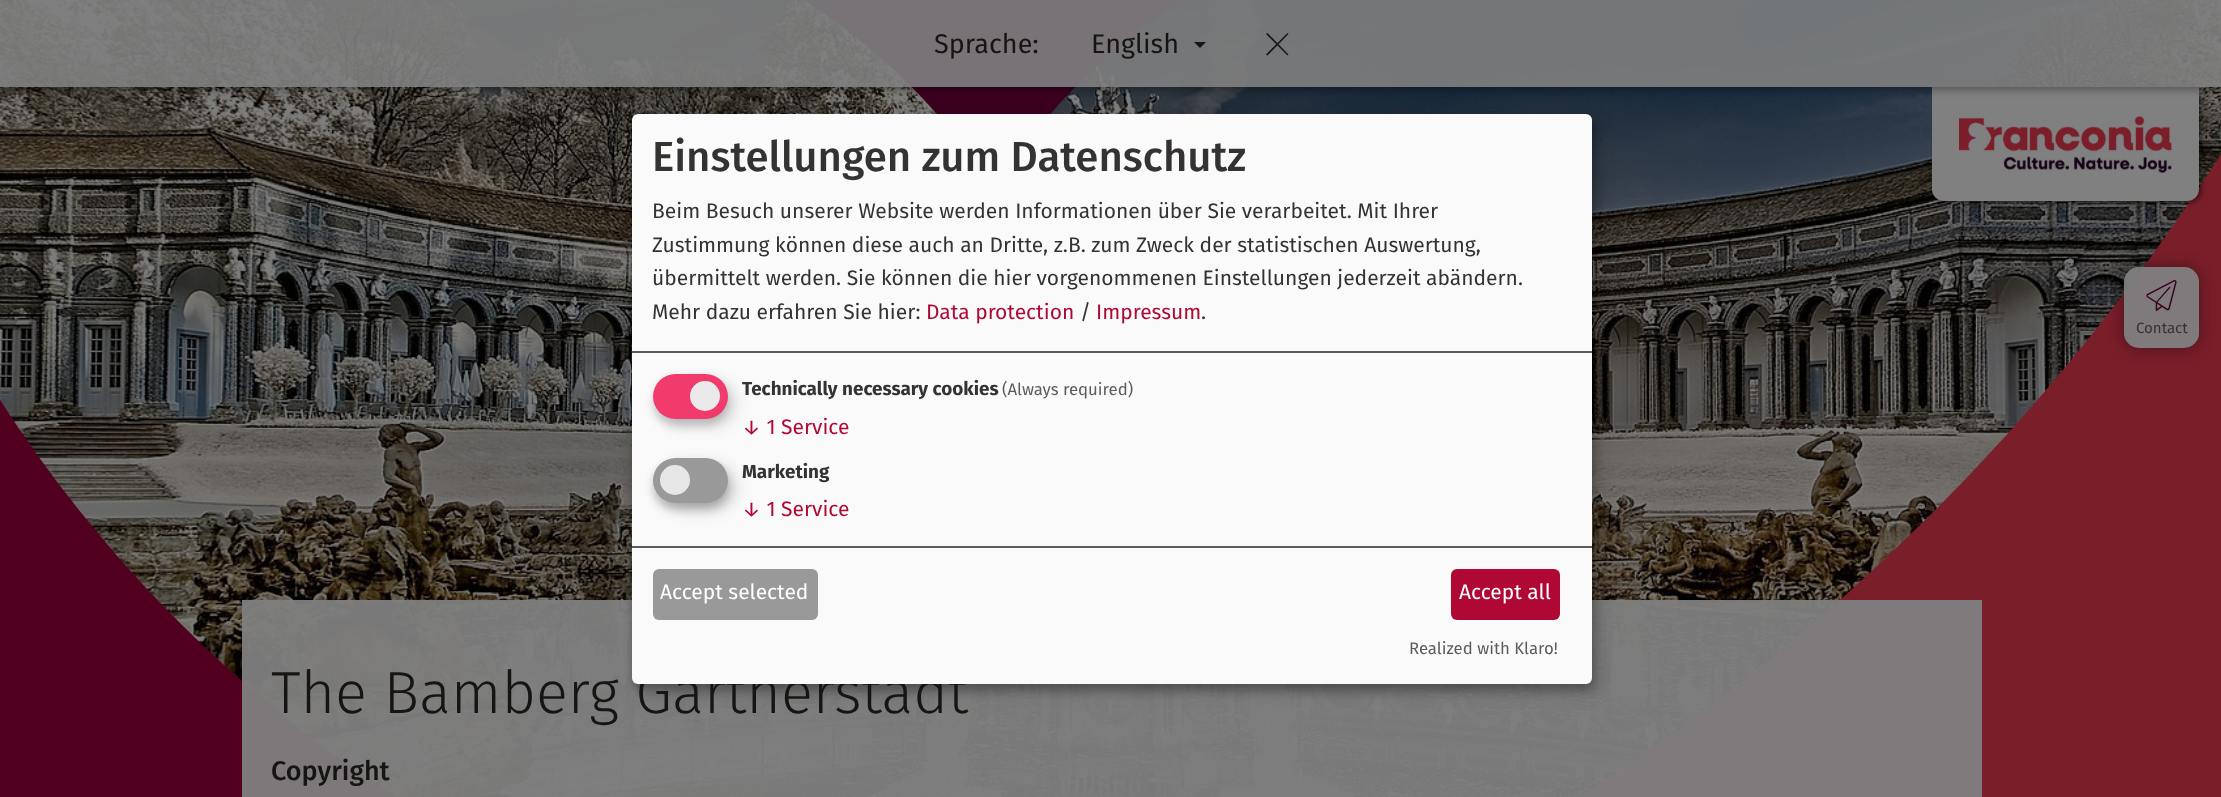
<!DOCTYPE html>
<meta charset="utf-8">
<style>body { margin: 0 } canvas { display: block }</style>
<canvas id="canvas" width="2221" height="797"></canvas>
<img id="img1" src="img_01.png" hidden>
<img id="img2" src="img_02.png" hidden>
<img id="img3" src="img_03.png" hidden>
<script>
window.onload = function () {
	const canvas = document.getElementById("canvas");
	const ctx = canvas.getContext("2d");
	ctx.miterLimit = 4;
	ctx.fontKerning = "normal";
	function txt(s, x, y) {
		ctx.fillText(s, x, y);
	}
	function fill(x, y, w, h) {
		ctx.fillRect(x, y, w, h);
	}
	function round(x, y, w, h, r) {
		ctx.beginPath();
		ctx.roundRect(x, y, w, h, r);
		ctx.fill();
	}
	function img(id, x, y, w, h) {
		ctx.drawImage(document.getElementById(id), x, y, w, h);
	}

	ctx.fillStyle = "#FFFFFF";
	fill(0, 0, 2221, 797);
	img("img1", 0, 0, 2221, 797);
	ctx.fillStyle = "rgba(0, 0, 0, 0.4)";
	ctx.filter = "blur(2px)";
	ctx.beginPath();
	ctx.roundRect(1935, 89, 267, 114, 12);
	ctx.fill();
	ctx.filter = "none";
	ctx.fillStyle = "#808080";
	ctx.beginPath();
	ctx.roundRect(1932, 87, 267, 114, [0, 0, 12, 12]);
	ctx.fill();
	ctx.save();
	ctx.beginPath();
	ctx.rect(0, 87, 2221, 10);
	ctx.clip();
	ctx.fillStyle = "rgba(0, 0, 0, 0.5)";
	ctx.filter = "blur(6px)";
	ctx.beginPath();
	ctx.rect(0, 0, 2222, 87);
	ctx.fill();
	ctx.filter = "none";
	ctx.restore();
	ctx.fillStyle = "rgba(128, 128, 128, 0.9)";
	fill(0, 0, 2221, 87);
	ctx.fillStyle = "#161513";
	ctx.beginPath();
	ctx.moveTo(1194, 42);
	ctx.lineTo(1206, 42);
	ctx.lineTo(1200, 48);
	ctx.closePath();
	ctx.fill();
	ctx.beginPath();
	ctx.moveTo(1267.5, 33);
	ctx.lineTo(1288.5, 54.5);
	ctx.lineTo(1287.5, 55.5);
	ctx.lineTo(1266, 34);
	ctx.closePath();
	ctx.fill();
	ctx.beginPath();
	ctx.moveTo(1266, 54.5);
	ctx.lineTo(1287.5, 33);
	ctx.lineTo(1288.5, 34);
	ctx.lineTo(1267.5, 55.5);
	ctx.closePath();
	ctx.fill();
	ctx.fillStyle = "rgba(128, 128, 128, 0.95)";
	fill(242, 600, 1740, 197);
	ctx.fillStyle = "rgba(0, 0, 0, 0.19)";
	ctx.filter = "blur(7.5px)";
	ctx.beginPath();
	ctx.roundRect(639, 122, 960, 570, 6);
	ctx.fill();
	ctx.filter = "none";
	ctx.fillStyle = "rgba(0, 0, 0, 0.2)";
	ctx.filter = "blur(4.5px)";
	ctx.beginPath();
	ctx.roundRect(632, 120, 960, 570, 6);
	ctx.fill();
	ctx.filter = "none";
	img("img2", 1959, 116, 213, 58);
	ctx.save();
	ctx.beginPath();
	ctx.moveTo(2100, 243);
	ctx.lineTo(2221, 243);
	ctx.lineTo(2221, 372);
	ctx.lineTo(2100, 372);
	ctx.closePath();
	ctx.moveTo(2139, 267);
	ctx.lineTo(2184, 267);
	ctx.bezierCurveTo(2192.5, 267, 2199, 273.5, 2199, 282);
	ctx.lineTo(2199, 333);
	ctx.bezierCurveTo(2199, 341.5, 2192.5, 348, 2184, 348);
	ctx.lineTo(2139, 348);
	ctx.bezierCurveTo(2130.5, 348, 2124, 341.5, 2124, 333);
	ctx.lineTo(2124, 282);
	ctx.bezierCurveTo(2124, 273.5, 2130.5, 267, 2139, 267);
	ctx.closePath();
	ctx.clip("evenodd");
	ctx.fillStyle = "rgba(0, 0, 0, 0.4)";
	ctx.filter = "blur(7.5px)";
	ctx.beginPath();
	ctx.roundRect(2124, 267, 75, 81, 15);
	ctx.fill();
	ctx.filter = "none";
	ctx.restore();
	ctx.fillStyle = "rgba(128, 128, 128, 0.95)";
	round(2124, 267, 75, 81, 15);
	img("img3", 2146, 280, 31, 31);
	ctx.font = "27px Fira Sans";
	ctx.fillStyle = "#161513";
	txt("Sprache:", 934, 53);
	txt("English", 1091, 53);
	ctx.font = "15px Fira Sans";
	ctx.fillStyle = "#353332";
	txt("Contact", 2136, 333);
	ctx.font = "300 59.4px Fira Sans";
	ctx.fillStyle = "#161513";
	txt("The Bamberg Gärtnerstadt", 271, 713);
	ctx.fillStyle = "#FAFAFA";
	round(632, 114, 960, 570, 6);
	ctx.fillStyle = "rgba(0, 0, 0, 0.2)";
	ctx.filter = "blur(4.5px)";
	ctx.beginPath();
	ctx.roundRect(653, 464, 75, 45, 22.5);
	ctx.fill();
	ctx.filter = "none";
	ctx.fillStyle = "rgba(0, 0, 0, 0.19)";
	ctx.filter = "blur(7.5px)";
	ctx.beginPath();
	ctx.roundRect(660, 465, 75, 45, 22.5);
	ctx.fill();
	ctx.filter = "none";
	ctx.fillStyle = "#999999";
	round(653, 458, 75, 45, 22.5);
	ctx.fillStyle = "#E6E6E6";
	ctx.beginPath();
	ctx.arc(675, 480, 15, 0, Math.PI * 2);
	ctx.fill();
	ctx.font = "21px Fira Sans";
	ctx.fillStyle = "#B00835";
	txt("↓ 1 Service", 742, 516);
	ctx.font = "bold 18.9px Fira Sans";
	ctx.fillStyle = "#353332";
	txt("Marketing", 742, 478);
	ctx.fillStyle = "rgba(50, 50, 50, 0.2)";
	ctx.filter = "blur(4.5px)";
	ctx.beginPath();
	ctx.roundRect(653, 380, 75, 45, 22.5);
	ctx.fill();
	ctx.filter = "none";
	ctx.fillStyle = "rgba(0, 0, 0, 0.15)";
	ctx.filter = "blur(7.5px)";
	ctx.beginPath();
	ctx.roundRect(660, 381, 75, 45, 22.5);
	ctx.fill();
	ctx.filter = "none";
	ctx.fillStyle = "#F03B6C";
	round(653, 374, 75, 45, 22.5);
	ctx.fillStyle = "#EAEAEA";
	ctx.beginPath();
	ctx.arc(705, 396, 15, 0, Math.PI * 2);
	ctx.fill();
	ctx.font = "21px Fira Sans";
	ctx.fillStyle = "#B00835";
	txt("↓ 1 Service", 742, 434);
	ctx.font = "16.75px Fira Sans";
	ctx.fillStyle = "#5C5C5C";
	txt("(Always required)", 1002, 395);
	ctx.font = "bold 18.9px Fira Sans";
	ctx.fillStyle = "#353332";
	txt("Technically necessary cookies", 742, 395);
	ctx.font = "16.75px Fira Sans";
	ctx.fillStyle = "#5C5C5C";
	txt("Realized with Klaro!", 1409, 654);
	ctx.fillStyle = "#B00835";
	round(1451, 569, 109, 51, 6);
	ctx.font = "21px Fira Sans";
	ctx.fillStyle = "#FFFFFF";
	txt("Accept all", 1459, 599);
	ctx.fillStyle = "#999999";
	round(653, 569, 165, 51, 6);
	ctx.fillStyle = "#FFFFFF";
	txt("Accept selected", 660, 599);
	ctx.fillStyle = "#353332";
	txt(".", 1201, 319);
	ctx.fillStyle = "#B00835";
	txt("Impressum", 1096, 319);
	ctx.fillStyle = "#353332";
	txt("/", 1080, 319);
	ctx.fillStyle = "#B00835";
	txt("Data protection", 926, 319);
	ctx.fillStyle = "#353332";
	txt("Mehr dazu erfahren Sie hier:", 652, 319);
	txt("übermittelt werden. Sie können die hier vorgenommenen Einstellungen jederzeit abändern.", 652, 285);
	txt("Zustimmung können diese auch an Dritte, z.B. zum Zweck der statistischen Auswertung,", 652, 252);
	txt("Beim Besuch unserer Website werden Informationen über Sie verarbeitet. Mit Ihrer", 652, 218);
	ctx.font = "500 42px Fira Sans";
	txt("Einstellungen zum Datenschutz", 652, 171);
	ctx.fillStyle = "#5C5C5C";
	fill(632, 546, 960, 2);
	fill(632, 351, 960, 2);
	ctx.font = "500 27px Fira Sans";
	ctx.fillStyle = "#161513";
	txt("Copyright", 271, 780);
};
</script>
